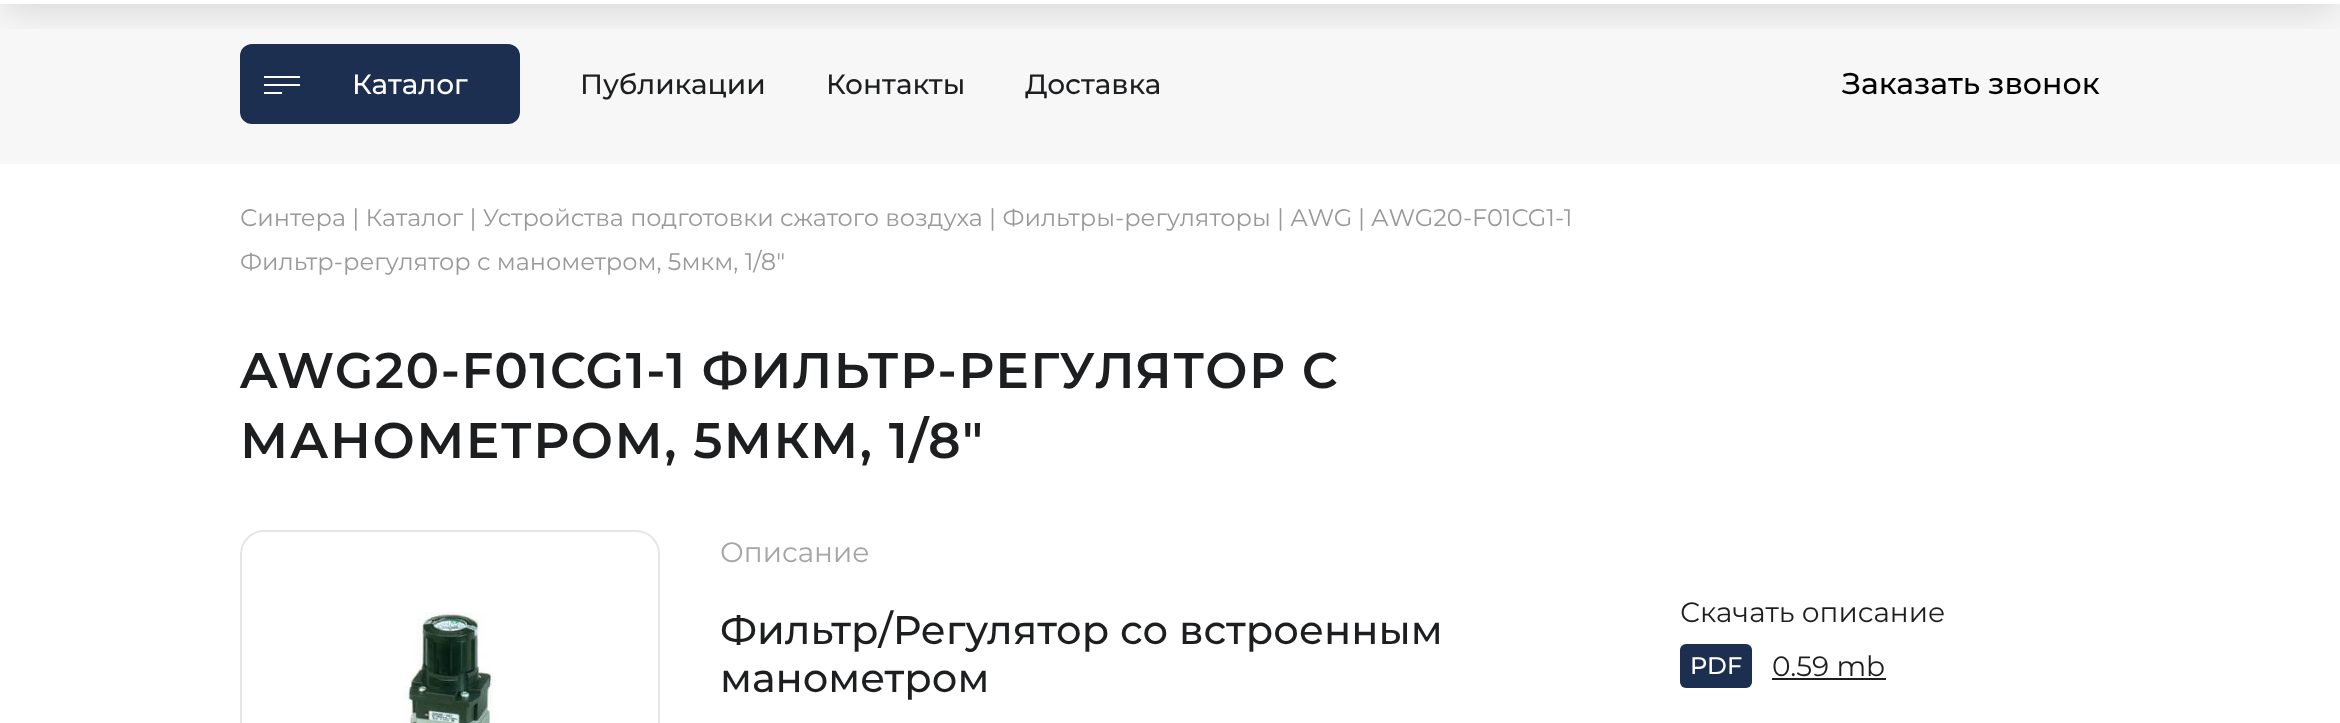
<!DOCTYPE html>
<meta charset="utf-8">
<style>body { margin: 0 } canvas { display: block }</style>
<canvas id="canvas" width="2340" height="723"></canvas>
<img id="img1" src="img_01.png" hidden>
<script>
window.onload = function () {
	const canvas = document.getElementById("canvas");
	const ctx = canvas.getContext("2d");
	ctx.miterLimit = 4;
	ctx.fontKerning = "normal";
	function txt(s, x, y) {
		ctx.fillText(s, x, y);
	}
	function fill(x, y, w, h) {
		ctx.fillRect(x, y, w, h);
	}
	function round(x, y, w, h, r) {
		ctx.beginPath();
		ctx.roundRect(x, y, w, h, r);
		ctx.fill();
	}
	function img(id, x, y, w, h) {
		ctx.drawImage(document.getElementById(id), x, y, w, h);
	}

	ctx.fillStyle = "#FFFFFF";
	fill(0, 0, 2340, 723);
	ctx.fillStyle = "#F7F7F7";
	fill(0, 4, 2340, 160);
	ctx.fillStyle = "#1D2F51";
	round(240, 44, 280, 80, 12);
	ctx.save();
	ctx.beginPath();
	ctx.rect(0, 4, 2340, 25);
	ctx.clip();
	ctx.fillStyle = "rgba(0, 0, 0, 0.12)";
	ctx.filter = "blur(18px)";
	ctx.beginPath();
	ctx.rect(4, -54, 2332, 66);
	ctx.fill();
	ctx.filter = "none";
	ctx.restore();
	ctx.fillStyle = "#FFFFFF";
	fill(264, 76, 36, 2);
	fill(264, 84, 36, 2);
	fill(264, 92, 18, 2);
	ctx.beginPath();
	ctx.roundRect(241, 531, 418, 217, 23);
	ctx.strokeStyle = "#E6E6E6";
	ctx.lineWidth = 2;
	ctx.stroke();
	img("img1", 404, 612, 89, 111);
	ctx.fillStyle = "#1D2F51";
	round(1680, 644, 72, 44, 6);
	ctx.fillStyle = "#1D1E20";
	fill(1772, 678, 114, 2);
	ctx.font = "500 28px Montserrat";
	ctx.fillStyle = "#FFFFFF";
	txt("Каталог", 352, 94);
	ctx.fillStyle = "#1D1E20";
	txt("Публикации", 580, 94);
	txt("Контакты", 826, 94);
	txt("Доставка", 1025, 94);
	ctx.font = "500 30px Montserrat";
	ctx.fillStyle = "#000000";
	txt("Заказать звонок", 1842, 94);
	ctx.font = "24px Montserrat";
	ctx.fillStyle = "#999999";
	txt("Синтера | Каталог | Устройства подготовки сжатого воздуха | Фильтры-регуляторы | AWG", 240, 226);
	txt("| AWG20-F01CG1-1", 1358, 226);
	txt("Фильтр-регулятор с манометром, 5мкм, 1/8″", 240, 270);
	ctx.letterSpacing = "1.5px";
	ctx.font = "600 50px Montserrat";
	ctx.fillStyle = "#1D1E20";
	txt("AWG20-F01CG1-1 ФИЛЬТР-РЕГУЛЯТОР С", 240, 388);
	txt("МАНОМЕТРОМ, 5МКМ, 1/8″", 240, 458);
	ctx.letterSpacing = "0px";
	ctx.font = "28px Montserrat";
	ctx.fillStyle = "#A5A5A6";
	txt("Описание", 720, 562);
	ctx.font = "500 40px Montserrat";
	ctx.fillStyle = "#1D1E20";
	txt("Фильтр/Регулятор со встроенным", 720, 644);
	txt("манометром", 720, 692);
	ctx.font = "28px Montserrat";
	txt("Скачать описание", 1680, 622);
	ctx.font = "500 24px Montserrat";
	ctx.fillStyle = "#FFFFFF";
	txt("PDF", 1690, 674);
	ctx.font = "28px Montserrat";
	ctx.fillStyle = "#1D1E20";
	txt("0.59 mb", 1772, 676);
};
</script>
